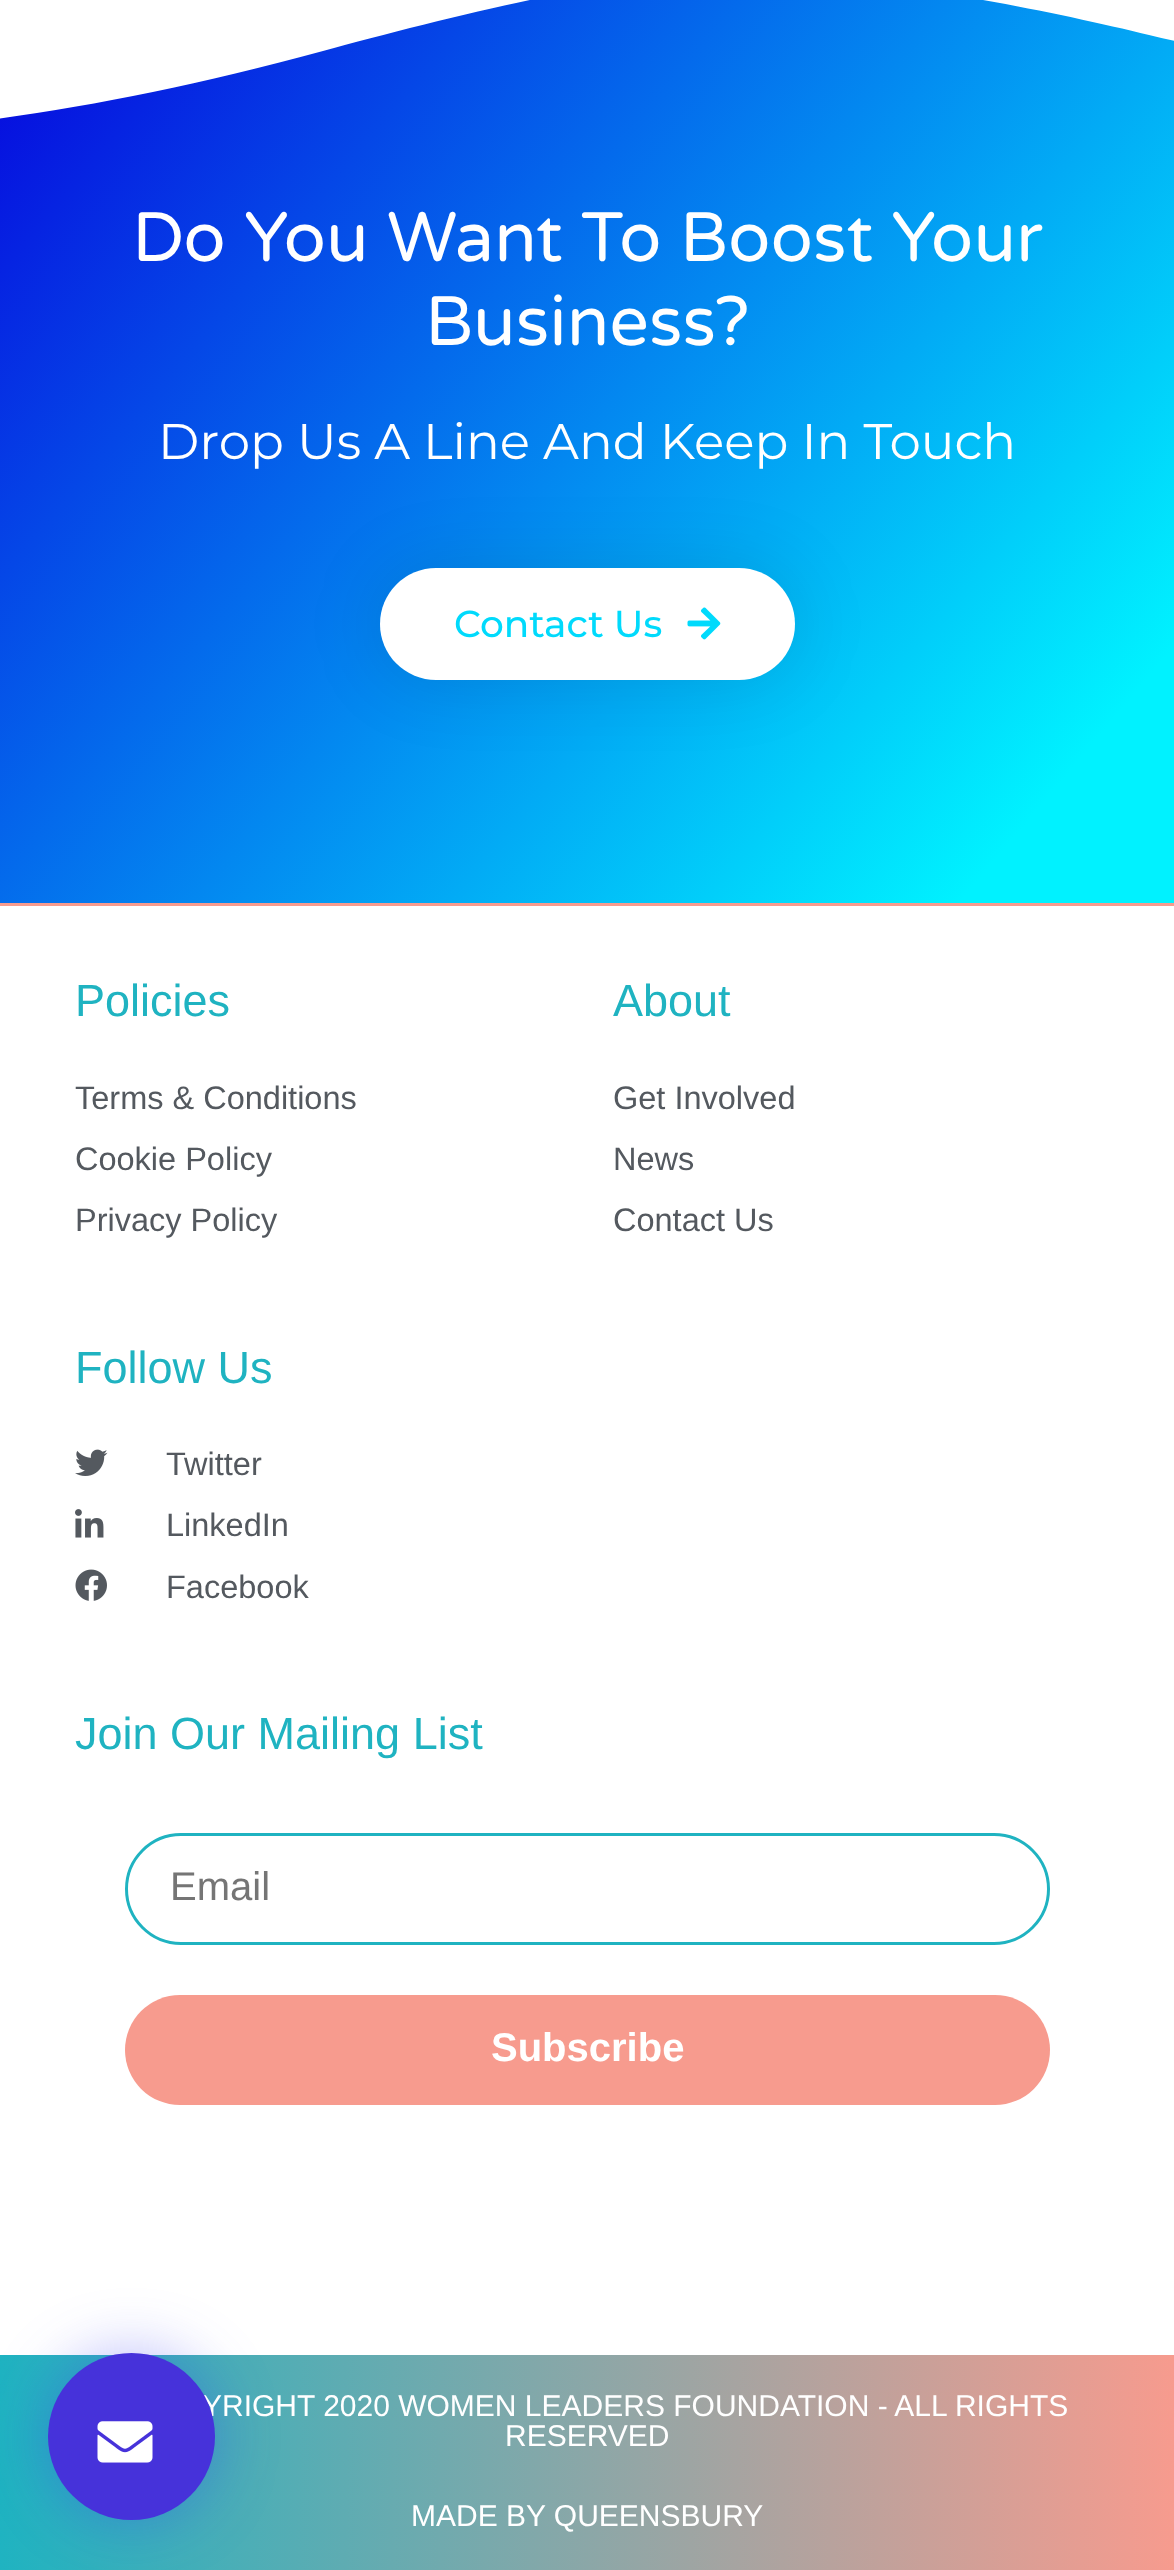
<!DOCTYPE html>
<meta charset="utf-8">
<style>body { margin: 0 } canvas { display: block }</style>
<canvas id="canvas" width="1174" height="2570"></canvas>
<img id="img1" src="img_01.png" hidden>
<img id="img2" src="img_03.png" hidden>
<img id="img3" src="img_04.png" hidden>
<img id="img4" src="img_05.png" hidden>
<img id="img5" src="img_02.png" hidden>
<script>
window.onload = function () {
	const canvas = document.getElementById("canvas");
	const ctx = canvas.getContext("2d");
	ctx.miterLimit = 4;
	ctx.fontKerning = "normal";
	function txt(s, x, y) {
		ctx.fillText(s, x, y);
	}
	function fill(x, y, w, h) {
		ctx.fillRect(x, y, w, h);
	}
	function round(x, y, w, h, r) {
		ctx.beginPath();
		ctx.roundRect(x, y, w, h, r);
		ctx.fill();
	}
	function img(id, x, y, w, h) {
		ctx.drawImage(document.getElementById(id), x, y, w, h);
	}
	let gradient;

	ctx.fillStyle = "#FFFFFF";
	fill(0, 0, 1174, 2570);
	gradient = ctx.createLinearGradient(13, -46, 1162, 918);
	gradient.addColorStop(0, "#0700DD");
	gradient.addColorStop(0.89, "#00F2FF");
	ctx.fillStyle = gradient;
	fill(0, 0, 1174, 903);
	ctx.fillStyle = "#FFFFFF";
	ctx.beginPath();
	ctx.moveTo(799, -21);
	ctx.bezierCurveTo(738, -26, 659, -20, 595, -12);
	ctx.bezierCurveTo(531, -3, 403, 29, 323, 51);
	ctx.bezierCurveTo(118, 107, -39, 128, -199, 138);
	ctx.bezierCurveTo(-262, 141, -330, 144, -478, 133);
	ctx.bezierCurveTo(-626, 123, -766, 88, -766, 88);
	ctx.lineTo(-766, -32);
	ctx.lineTo(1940, -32);
	ctx.lineTo(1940, 21);
	ctx.bezierCurveTo(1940, 21, 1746, 78, 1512, 74);
	ctx.bezierCurveTo(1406, 73, 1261, 62, 1149, 35);
	ctx.bezierCurveTo(1092, 21, 1008, 3, 934, -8);
	ctx.bezierCurveTo(860, -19, 827, -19, 799, -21);
	ctx.closePath();
	ctx.fill();
	ctx.fillStyle = "rgba(0, 0, 0, 0.1)";
	ctx.filter = "blur(37.5px)";
	ctx.beginPath();
	ctx.roundRect(380, 568, 415, 112, 56);
	ctx.fill();
	ctx.filter = "none";
	ctx.fillStyle = "#FFFFFF";
	round(380, 568, 415, 112, 56);
	img("img1", 687, 607, 34, 33);
	gradient = ctx.createLinearGradient(0, 2463, 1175, 2463);
	gradient.addColorStop(0, "#1FB3C1");
	gradient.addColorStop(1, "#F79B8E");
	ctx.fillStyle = gradient;
	fill(0, 2355, 1174, 215);
	ctx.fillStyle = "rgba(53, 56, 240, 0.35)";
	ctx.filter = "blur(31px)";
	ctx.beginPath();
	ctx.roundRect(48, 2353, 167, 167, 83.5);
	ctx.fill();
	ctx.filter = "none";
	ctx.fillStyle = "#F79B8E";
	fill(0, 903, 1174, 3);
	img("img2", 75, 1449, 33, 27);
	img("img3", 75, 1509, 29, 29);
	img("img4", 75, 1569, 32, 32);
	ctx.beginPath();
	ctx.roundRect(126.5, 1834.5, 922, 109, 54.5);
	ctx.strokeStyle = "#1FB3C1";
	ctx.lineWidth = 3;
	ctx.stroke();
	round(125, 1995, 925, 110, 55);
	ctx.font = "70px Varela Round";
	ctx.fillStyle = "#FFFFFF";
	txt("Do You Want To Boost Your", 132, 261);
	txt("Business?", 425, 345);
	ctx.font = "50px Montserrat";
	txt("Drop Us A Line And Keep In Touch", 158, 459);
	ctx.font = "500 37.5px Montserrat";
	ctx.fillStyle = "#00DAFC";
	txt("Contact Us", 454, 637);
	ctx.font = "45px Liberation Sans";
	ctx.fillStyle = "#1FB3C1";
	txt("Policies", 75, 1016);
	ctx.font = "32.5px Liberation Sans";
	ctx.fillStyle = "#54595F";
	txt("Terms & Conditions", 75, 1109);
	txt("Cookie Policy", 75, 1170);
	txt("Privacy Policy", 75, 1231);
	ctx.font = "45px Liberation Sans";
	ctx.fillStyle = "#1FB3C1";
	txt("About", 613, 1016);
	ctx.font = "32.5px Liberation Sans";
	ctx.fillStyle = "#54595F";
	txt("Get Involved", 613, 1109);
	txt("News", 613, 1170);
	txt("Contact Us", 613, 1231);
	ctx.font = "45px Liberation Sans";
	ctx.fillStyle = "#1FB3C1";
	txt("Follow Us", 75, 1383);
	ctx.font = "32.5px Liberation Sans";
	ctx.fillStyle = "#54595F";
	txt("Twitter", 166, 1475);
	txt("LinkedIn", 166, 1536);
	txt("Facebook", 166, 1598);
	ctx.font = "45px Liberation Sans";
	ctx.fillStyle = "#1FB3C1";
	txt("Join Our Mailing List", 75, 1749);
	ctx.font = "40px Liberation Sans";
	ctx.fillStyle = "#757575";
	txt("Email", 170, 1900);
	ctx.font = "bold 40px Liberation Sans";
	ctx.fillStyle = "#FFFFFF";
	txt("Subscribe", 491, 2061);
	ctx.font = "30px Liberation Sans";
	txt("YRIGHT 2020 WOMEN LEADERS FOUNDATION - ALL RIGHTS", 202, 2416);
	ctx.fillStyle = "#4632DA";
	ctx.beginPath();
	ctx.arc(131.5, 2436.5, 83.5, 0, Math.PI * 2);
	ctx.fill();
	img("img5", 97, 2421, 56, 42);
	ctx.fillStyle = "#FFFFFF";
	txt("RESERVED", 505, 2446);
	txt("MADE BY QUEENSBURY", 411, 2526);
};
</script>
